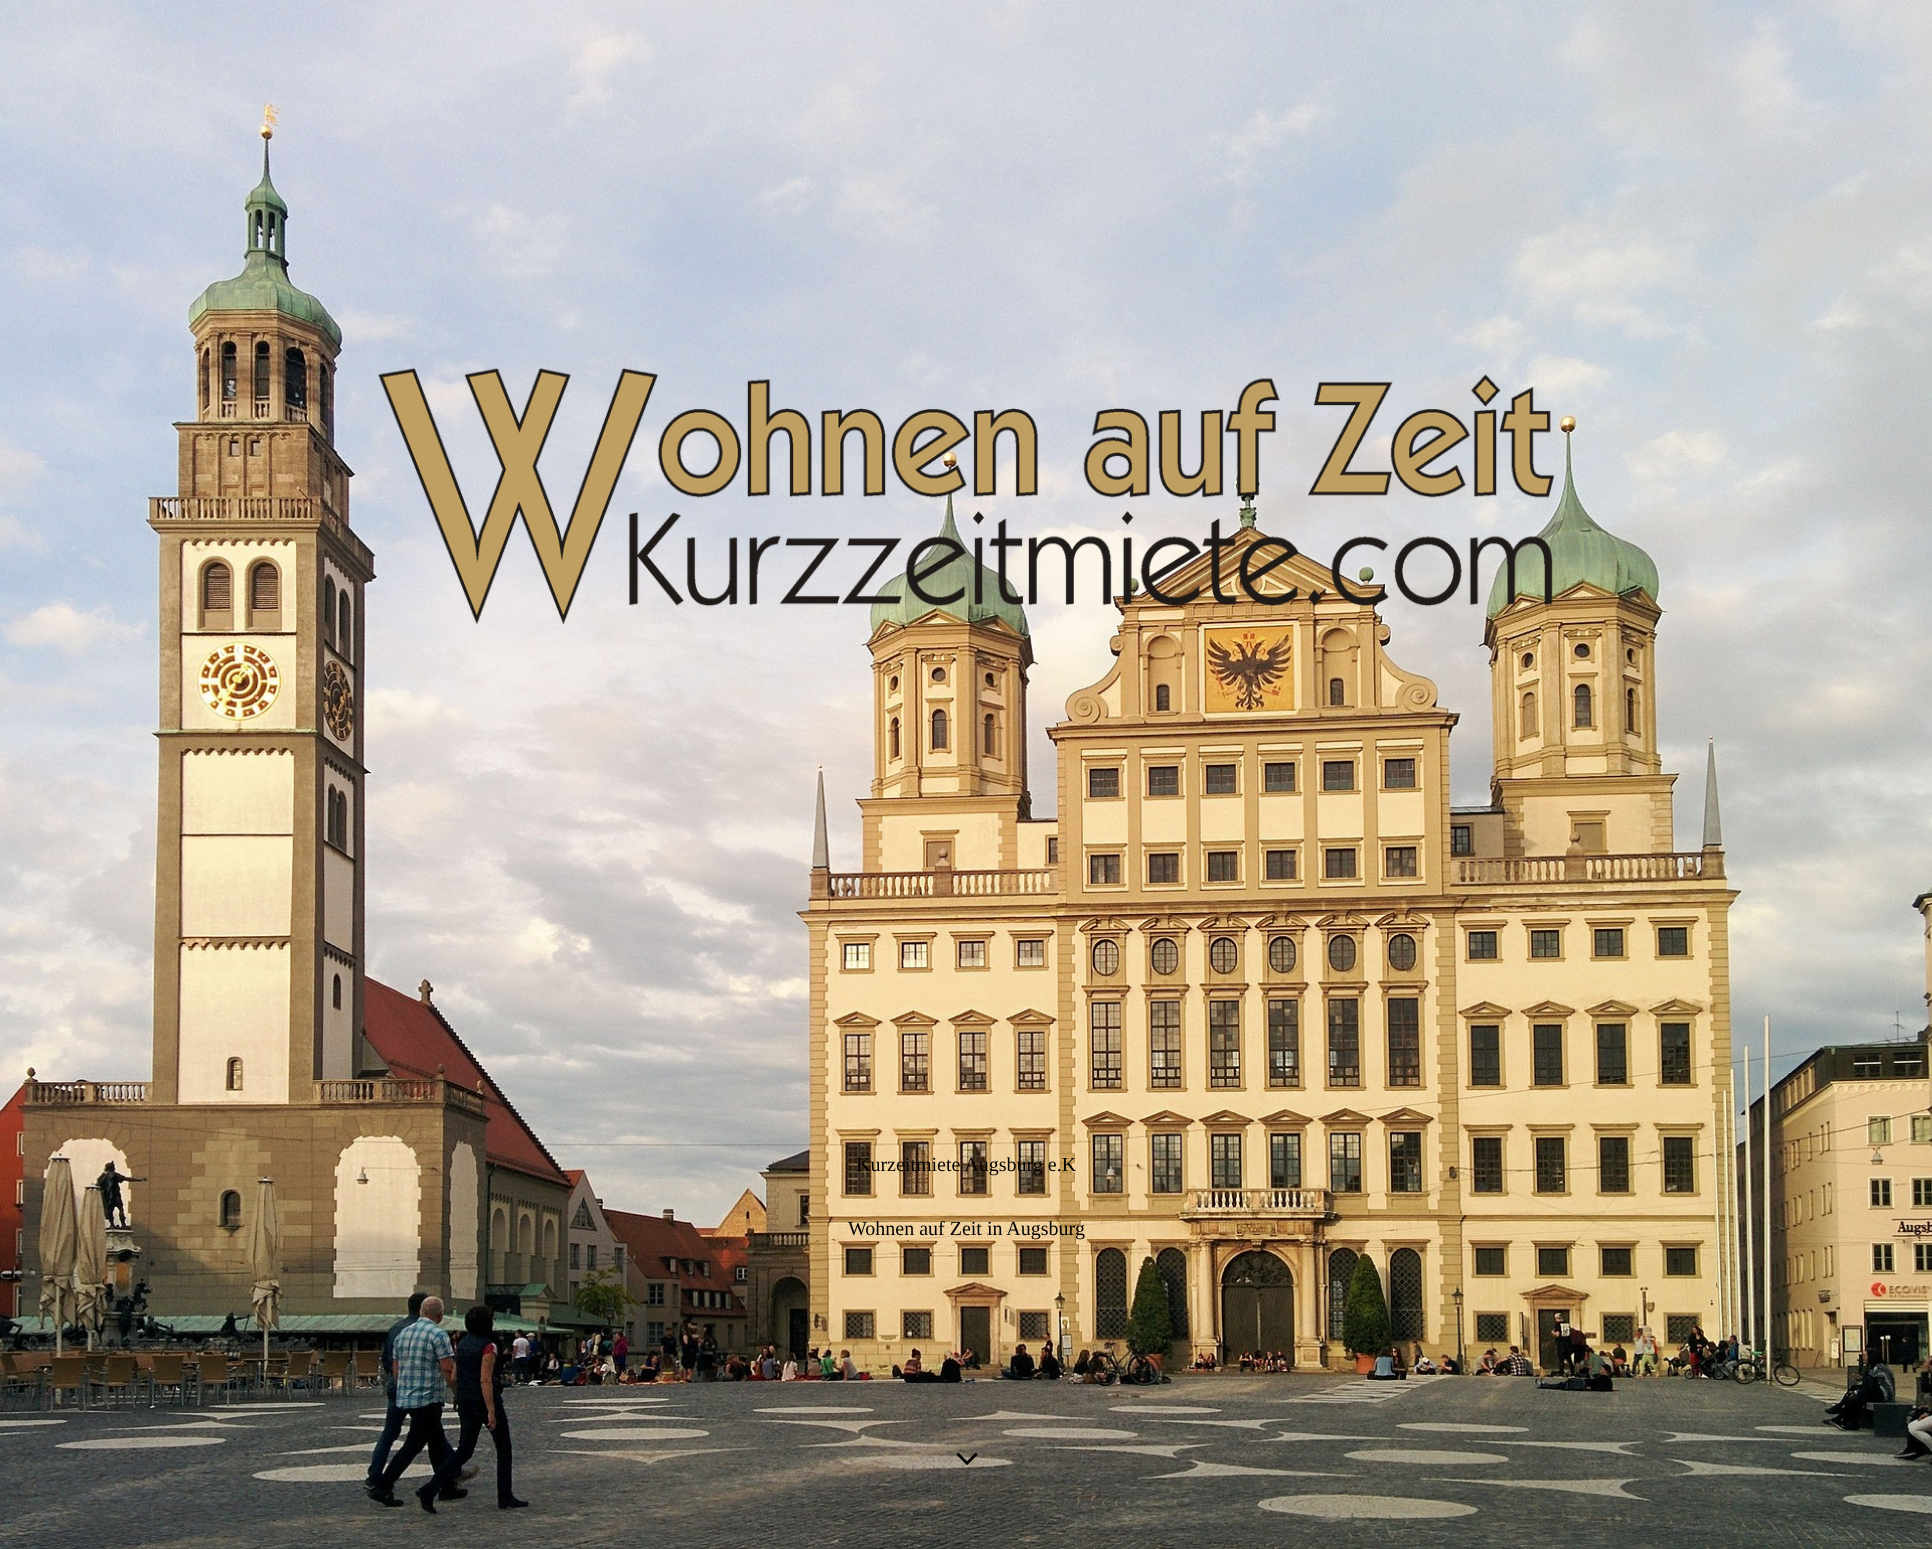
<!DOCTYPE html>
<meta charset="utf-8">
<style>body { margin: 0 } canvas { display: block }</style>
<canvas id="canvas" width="1932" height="1549"></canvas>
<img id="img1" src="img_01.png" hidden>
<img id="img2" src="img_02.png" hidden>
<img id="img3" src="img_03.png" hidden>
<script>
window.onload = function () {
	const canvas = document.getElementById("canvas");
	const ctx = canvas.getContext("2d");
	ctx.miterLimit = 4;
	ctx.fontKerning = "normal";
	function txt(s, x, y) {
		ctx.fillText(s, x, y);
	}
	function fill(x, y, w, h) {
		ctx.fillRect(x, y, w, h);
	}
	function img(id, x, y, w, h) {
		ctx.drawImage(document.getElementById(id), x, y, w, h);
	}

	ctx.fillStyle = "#FFFFFF";
	fill(0, 0, 1932, 1549);
	img("img1", 0, 0, 1932, 1549);
	img("img2", 378, 368, 1176, 256);
	img("img3", 956, 1452, 22, 13);
	ctx.font = "20px Liberation Serif";
	ctx.fillStyle = "#000000";
	txt("Kurzeitmiete Augsburg e.K", 856, 1171);
	txt("Wohnen auf Zeit in Augsburg", 848, 1235);
};
</script>
